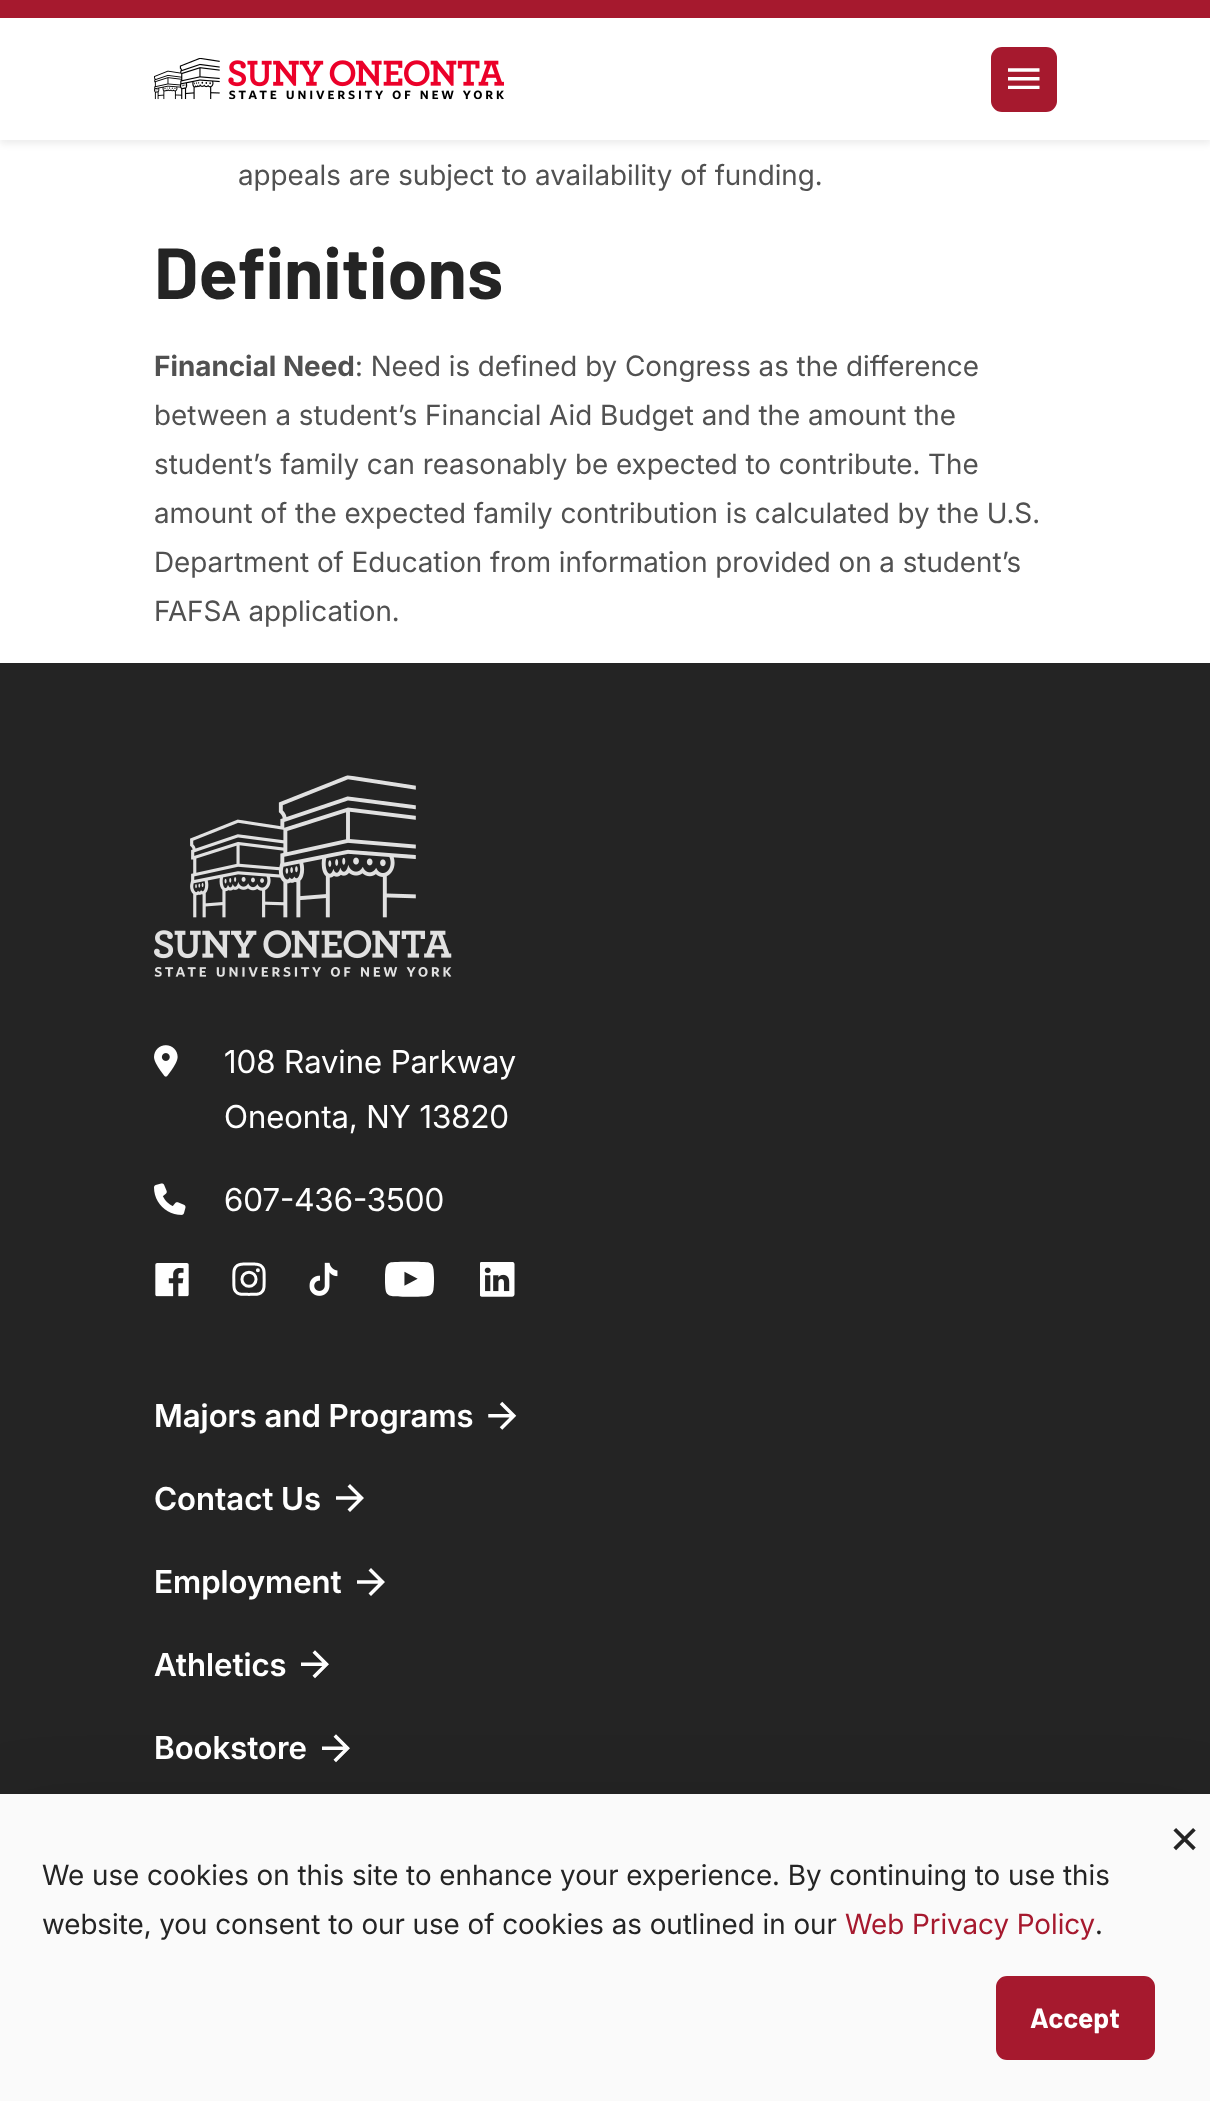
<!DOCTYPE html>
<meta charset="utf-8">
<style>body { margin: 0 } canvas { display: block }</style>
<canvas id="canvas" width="1210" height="2101"></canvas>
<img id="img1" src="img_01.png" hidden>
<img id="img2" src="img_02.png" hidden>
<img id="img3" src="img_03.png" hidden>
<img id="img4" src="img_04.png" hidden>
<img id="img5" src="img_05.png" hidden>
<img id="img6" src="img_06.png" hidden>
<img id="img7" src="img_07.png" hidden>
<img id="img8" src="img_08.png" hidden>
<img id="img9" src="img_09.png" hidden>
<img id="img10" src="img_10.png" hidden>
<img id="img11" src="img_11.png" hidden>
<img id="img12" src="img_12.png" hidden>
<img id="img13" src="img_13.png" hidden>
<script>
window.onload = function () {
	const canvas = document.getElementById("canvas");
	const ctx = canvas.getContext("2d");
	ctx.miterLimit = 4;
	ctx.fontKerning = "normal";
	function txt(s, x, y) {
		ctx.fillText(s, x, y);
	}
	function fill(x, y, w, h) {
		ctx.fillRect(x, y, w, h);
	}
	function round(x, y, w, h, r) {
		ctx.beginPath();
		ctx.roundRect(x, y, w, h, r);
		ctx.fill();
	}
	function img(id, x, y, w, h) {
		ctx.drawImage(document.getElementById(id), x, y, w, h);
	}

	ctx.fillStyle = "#FFFFFF";
	fill(0, 0, 1210, 2101);
	ctx.fillStyle = "rgba(0, 0, 0, 0.07)";
	ctx.filter = "blur(3.5px)";
	ctx.beginPath();
	ctx.rect(0, 4, 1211, 140);
	ctx.fill();
	ctx.filter = "none";
	ctx.fillStyle = "#FFFFFF";
	fill(0, 18, 1210, 122);
	ctx.fillStyle = "#A6192E";
	fill(0, 0, 1210, 18);
	img("img1", 154, 58, 350, 42);
	round(991, 47, 66, 65, 11);
	img("img2", 1008, 68, 32, 21);
	ctx.fillStyle = "#242424";
	fill(0, 663, 1210, 1131);
	img("img3", 154, 775, 298, 202);
	img("img4", 154, 1045, 24, 32);
	img("img5", 154, 1183, 32, 32);
	img("img6", 155, 1263, 34, 34);
	img("img7", 232, 1262, 34, 34);
	img("img8", 309, 1262, 29, 34);
	img("img9", 385, 1261, 49, 36);
	img("img10", 480, 1262, 35, 35);
	img("img11", 488, 1401, 29, 29);
	img("img12", 336, 1484, 28, 28);
	img("img12", 357, 1568, 28, 28);
	img("img13", 301, 1650, 28, 29);
	img("img13", 322, 1734, 28, 29);
	ctx.fillStyle = "rgba(0, 0, 0, 0.18)";
	ctx.filter = "blur(42px)";
	ctx.beginPath();
	ctx.rect(0, 1822, 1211, 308);
	ctx.fill();
	ctx.filter = "none";
	ctx.fillStyle = "#FAFAFA";
	fill(0, 1794, 1210, 307);
	ctx.fillStyle = "#A6192E";
	ctx.beginPath();
	ctx.roundRect(998.5, 1978.5, 154, 79, 8.5);
	ctx.fill();
	ctx.strokeStyle = "#A6192E";
	ctx.lineWidth = 5;
	ctx.stroke();
	ctx.font = "28px 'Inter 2'";
	ctx.fillStyle = "#515151";
	txt("appeals are subject to availability of funding.", 238, 185);
	ctx.font = "bold 72px Barlow";
	ctx.fillStyle = "#242424";
	txt("Definitions", 154, 299);
	ctx.font = "bold 28px Inter";
	ctx.fillStyle = "#515151";
	txt("Financial Need", 154, 376);
	ctx.font = "28px 'Inter 2'";
	txt(": Need is defined by Congress as the difference", 355, 376);
	txt("between a student’s Financial Aid Budget and the amount the", 154, 425);
	txt("student’s family can reasonably be expected to contribute. The", 154, 474);
	txt("amount of the expected family contribution is calculated by the U.S.", 154, 523);
	txt("Department of Education from information provided on a student’s", 154, 572);
	txt("FAFSA application.", 154, 621);
	ctx.font = "31.5px Inter";
	ctx.fillStyle = "#FFFFFF";
	txt("108 Ravine Parkway", 224, 1073);
	txt("Oneonta, NY 13820", 224, 1128);
	txt("607-436-3500", 224, 1211);
	ctx.font = "600 31.5px Inter";
	txt("Majors and Programs", 154, 1427);
	txt("Contact Us", 154, 1510);
	txt("Employment", 154, 1593);
	txt("Athletics", 154, 1676);
	txt("Bookstore", 154, 1759);
	ctx.font = "49px 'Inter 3'";
	ctx.fillStyle = "#242424";
	txt("×", 1169, 1853);
	ctx.font = "28px 'Inter 2'";
	txt("We use cookies on this site to enhance your experience. By continuing to use this", 42, 1885);
	txt("website, you consent to our use of cookies as outlined in our", 42, 1934);
	ctx.fillStyle = "#A6192E";
	txt("Web Privacy Policy", 845, 1934);
	ctx.fillStyle = "#242424";
	txt(".", 1095, 1934);
	ctx.font = "bold 28px Barlow";
	ctx.fillStyle = "#FFFFFF";
	txt("Accept", 1030, 2028);
};
</script>
